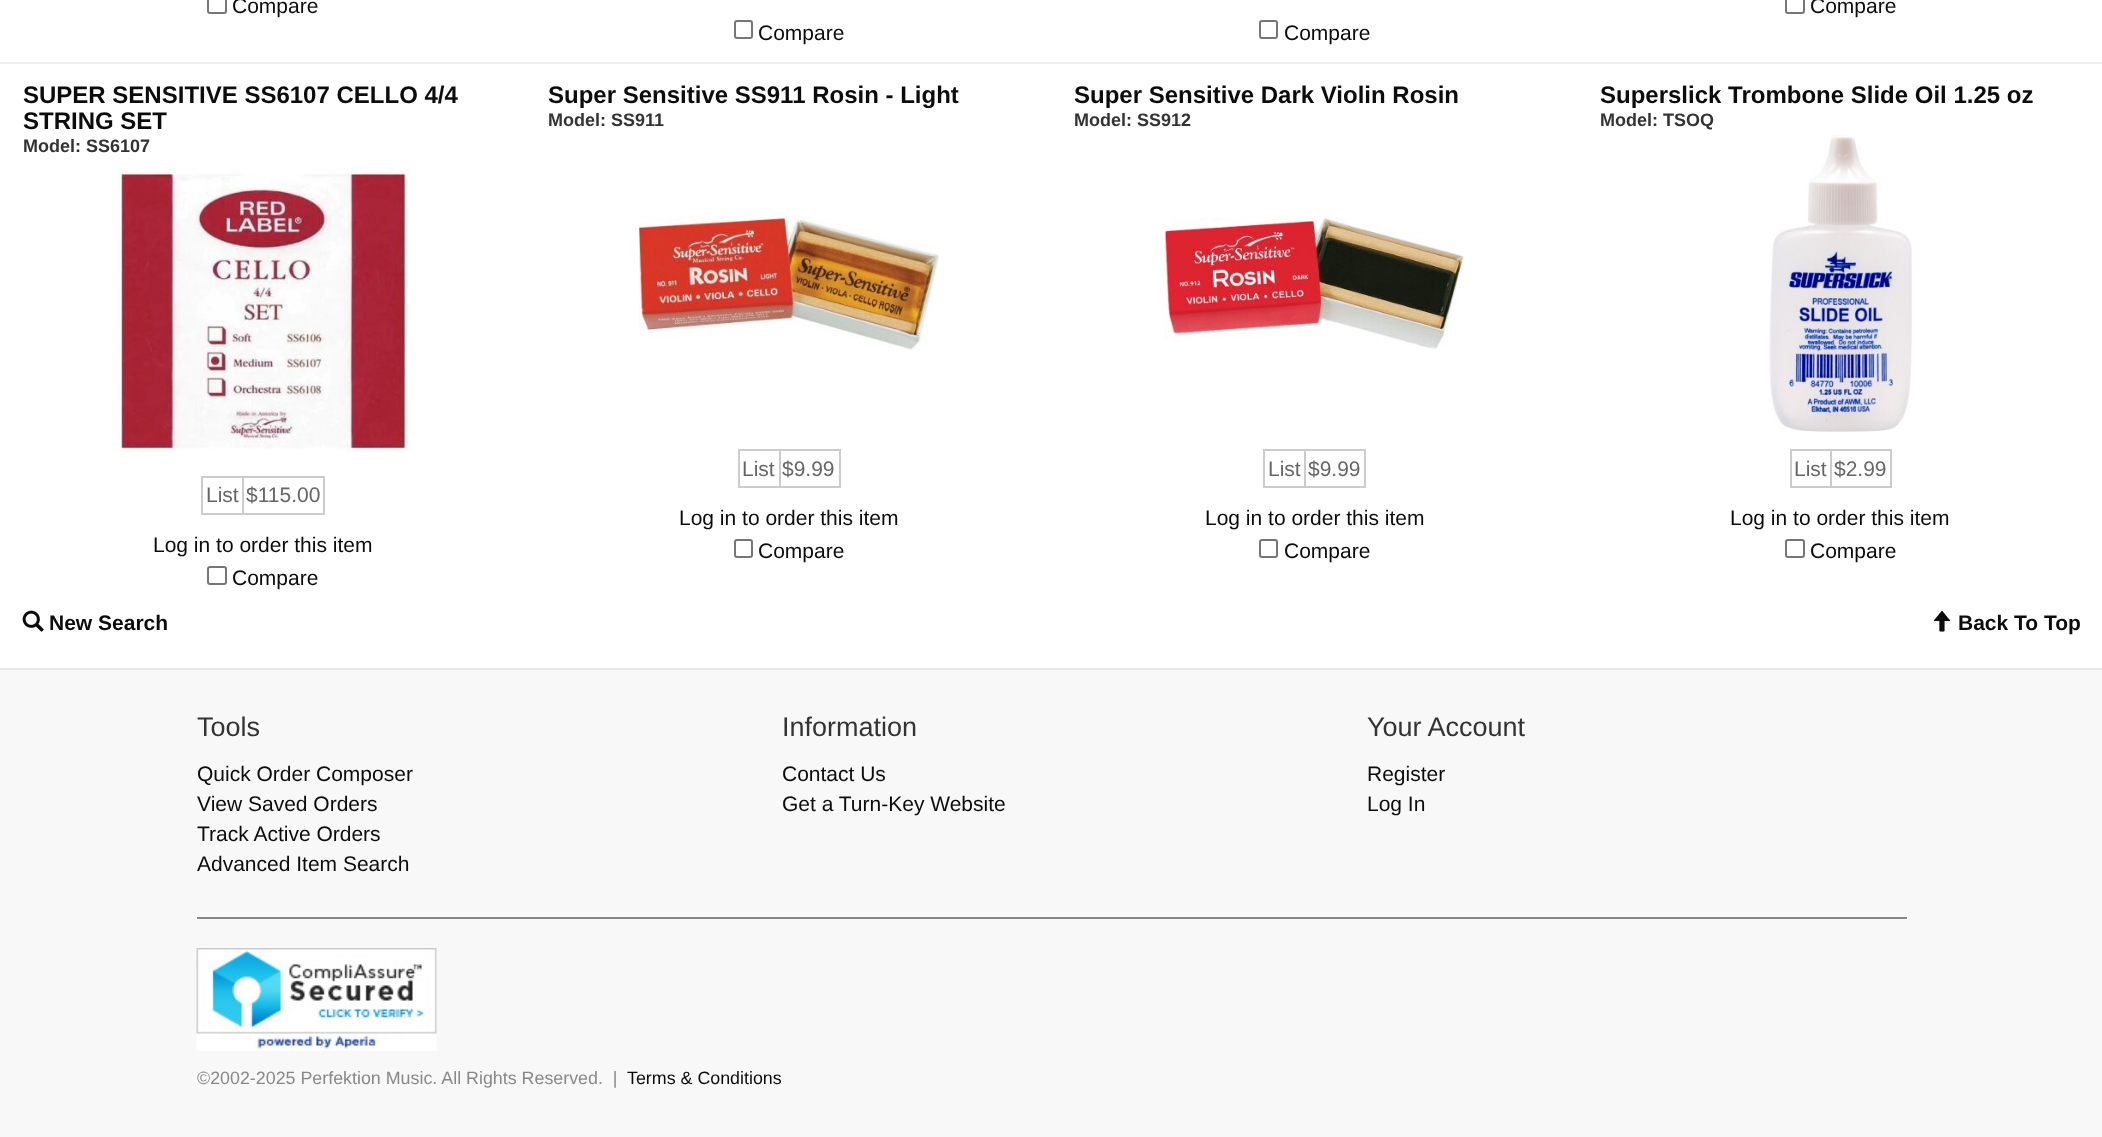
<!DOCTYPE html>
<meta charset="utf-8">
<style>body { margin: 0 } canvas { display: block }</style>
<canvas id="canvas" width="2102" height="1137"></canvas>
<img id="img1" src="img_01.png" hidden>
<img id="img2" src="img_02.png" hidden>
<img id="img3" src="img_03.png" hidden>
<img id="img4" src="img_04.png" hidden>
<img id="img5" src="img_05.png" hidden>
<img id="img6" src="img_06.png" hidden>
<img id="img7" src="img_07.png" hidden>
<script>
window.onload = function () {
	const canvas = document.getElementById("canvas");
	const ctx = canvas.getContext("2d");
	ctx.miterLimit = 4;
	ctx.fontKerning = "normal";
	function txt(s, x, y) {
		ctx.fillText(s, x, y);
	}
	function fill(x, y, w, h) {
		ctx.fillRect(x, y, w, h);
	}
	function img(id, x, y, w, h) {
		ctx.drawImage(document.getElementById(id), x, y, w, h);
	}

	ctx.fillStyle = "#FFFFFF";
	fill(0, 0, 2102, 1137);
	ctx.beginPath();
	ctx.roundRect(208, -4, 18, 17, 2);
	ctx.strokeStyle = "#767676";
	ctx.lineWidth = 2;
	ctx.stroke();
	ctx.beginPath();
	ctx.roundRect(1786, -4, 18, 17, 2);
	ctx.stroke();
	ctx.beginPath();
	ctx.roundRect(735, 21, 17, 17, 2);
	ctx.stroke();
	ctx.beginPath();
	ctx.roundRect(1260, 21, 17, 17, 2);
	ctx.stroke();
	ctx.fillStyle = "#EEEEEE";
	fill(0, 62, 2102, 2);
	img("img1", 112, 168, 299, 285);
	ctx.fillStyle = "#CCCCCC";
	fill(242, 476, 82, 2);
	fill(323, 476, 2, 39);
	fill(242, 513, 82, 2);
	fill(242, 476, 2, 39);
	fill(201, 476, 42, 2);
	fill(201, 513, 42, 2);
	fill(201, 476, 2, 39);
	ctx.beginPath();
	ctx.roundRect(208, 567, 18, 17, 2);
	ctx.stroke();
	img("img2", 639, 216, 300, 134);
	fill(779, 449, 61, 2);
	fill(839, 449, 2, 39);
	fill(779, 486, 61, 2);
	fill(779, 449, 2, 39);
	fill(738, 449, 42, 2);
	fill(738, 486, 42, 2);
	fill(738, 449, 2, 39);
	ctx.beginPath();
	ctx.roundRect(735, 540, 17, 17, 2);
	ctx.stroke();
	img("img3", 1164, 217, 300, 133);
	fill(1304, 449, 61, 2);
	fill(1364, 449, 2, 39);
	fill(1304, 486, 61, 2);
	fill(1304, 449, 2, 39);
	fill(1263, 449, 42, 2);
	fill(1263, 486, 42, 2);
	fill(1263, 449, 2, 39);
	ctx.beginPath();
	ctx.roundRect(1260, 540, 17, 17, 2);
	ctx.stroke();
	img("img4", 1769, 135, 143, 297);
	fill(1830, 449, 62, 2);
	fill(1890, 449, 2, 39);
	fill(1830, 486, 62, 2);
	fill(1830, 449, 2, 39);
	fill(1790, 449, 42, 2);
	fill(1790, 486, 42, 2);
	fill(1790, 449, 2, 39);
	ctx.beginPath();
	ctx.roundRect(1786, 540, 18, 17, 2);
	ctx.stroke();
	img("img5", 22, 610, 22, 22);
	img("img6", 1933, 611, 18, 21);
	ctx.fillStyle = "#F8F8F8";
	fill(0, 670, 2102, 467);
	ctx.fillStyle = "#E7E7E7";
	fill(0, 668, 2102, 2);
	ctx.fillStyle = "#888888";
	fill(197, 917, 1710, 2);
	img("img7", 196, 948, 241, 103);
	ctx.font = "21px Liberation Sans";
	ctx.fillStyle = "#0D0C0C";
	txt("Compare", 232, 13);
	txt("Compare", 1810, 13);
	txt("Compare", 758, 40);
	txt("Compare", 1284, 40);
	ctx.font = "bold 24px Liberation Sans";
	txt("SUPER SENSITIVE SS6107 CELLO 4/4", 23, 103);
	txt("STRING SET", 23, 129);
	ctx.font = "bold 18px Liberation Sans";
	ctx.fillStyle = "#333333";
	txt("Model: SS6107", 23, 152);
	ctx.font = "21px Liberation Sans";
	ctx.fillStyle = "#666666";
	txt("List", 206, 502);
	txt("$115.00", 246, 502);
	ctx.fillStyle = "#0D0C0C";
	txt("Log in to order this item", 153, 552);
	txt("Compare", 232, 585);
	ctx.font = "bold 24px Liberation Sans";
	txt("Super Sensitive SS911 Rosin - Light", 548, 103);
	ctx.font = "bold 18px Liberation Sans";
	ctx.fillStyle = "#333333";
	txt("Model: SS911", 548, 126);
	ctx.font = "21px Liberation Sans";
	ctx.fillStyle = "#666666";
	txt("List", 742, 476);
	txt("$9.99", 782, 476);
	ctx.fillStyle = "#0D0C0C";
	txt("Log in to order this item", 679, 525);
	txt("Compare", 758, 558);
	ctx.font = "bold 24px Liberation Sans";
	txt("Super Sensitive Dark Violin Rosin", 1074, 103);
	ctx.font = "bold 18px Liberation Sans";
	ctx.fillStyle = "#333333";
	txt("Model: SS912", 1074, 126);
	ctx.font = "21px Liberation Sans";
	ctx.fillStyle = "#666666";
	txt("List", 1268, 476);
	txt("$9.99", 1308, 476);
	ctx.fillStyle = "#0D0C0C";
	txt("Log in to order this item", 1205, 525);
	txt("Compare", 1284, 558);
	ctx.font = "bold 24px Liberation Sans";
	txt("Superslick Trombone Slide Oil 1.25 oz", 1600, 103);
	ctx.font = "bold 18px Liberation Sans";
	ctx.fillStyle = "#333333";
	txt("Model: TSOQ", 1600, 126);
	ctx.font = "21px Liberation Sans";
	ctx.fillStyle = "#666666";
	txt("List", 1794, 476);
	txt("$2.99", 1834, 476);
	ctx.fillStyle = "#0D0C0C";
	txt("Log in to order this item", 1730, 525);
	txt("Compare", 1810, 558);
	ctx.font = "bold 21px Liberation Sans";
	txt("New Search", 49, 630);
	txt("Back To Top", 1958, 630);
	ctx.font = "27px Liberation Sans";
	ctx.fillStyle = "#333333";
	txt("Tools", 197, 736);
	ctx.font = "21px Liberation Sans";
	ctx.fillStyle = "#0D0C0C";
	txt("Quick Order Composer", 197, 781);
	txt("View Saved Orders", 197, 811);
	txt("Track Active Orders", 197, 841);
	txt("Advanced Item Search", 197, 871);
	ctx.font = "27px Liberation Sans";
	ctx.fillStyle = "#333333";
	txt("Information", 782, 736);
	ctx.font = "21px Liberation Sans";
	ctx.fillStyle = "#0D0C0C";
	txt("Contact Us", 782, 781);
	txt("Get a Turn-Key Website", 782, 811);
	ctx.font = "27px Liberation Sans";
	ctx.fillStyle = "#333333";
	txt("Your Account", 1367, 736);
	ctx.font = "21px Liberation Sans";
	ctx.fillStyle = "#0D0C0C";
	txt("Register", 1367, 781);
	txt("Log In", 1367, 811);
	ctx.font = "17.85px Liberation Sans";
	ctx.fillStyle = "#888888";
	txt("©2002-2025 Perfektion Music. All Rights Reserved.  |", 197, 1084);
	ctx.fillStyle = "#0D0C0C";
	txt("Terms & Conditions", 627, 1084);
};
</script>
